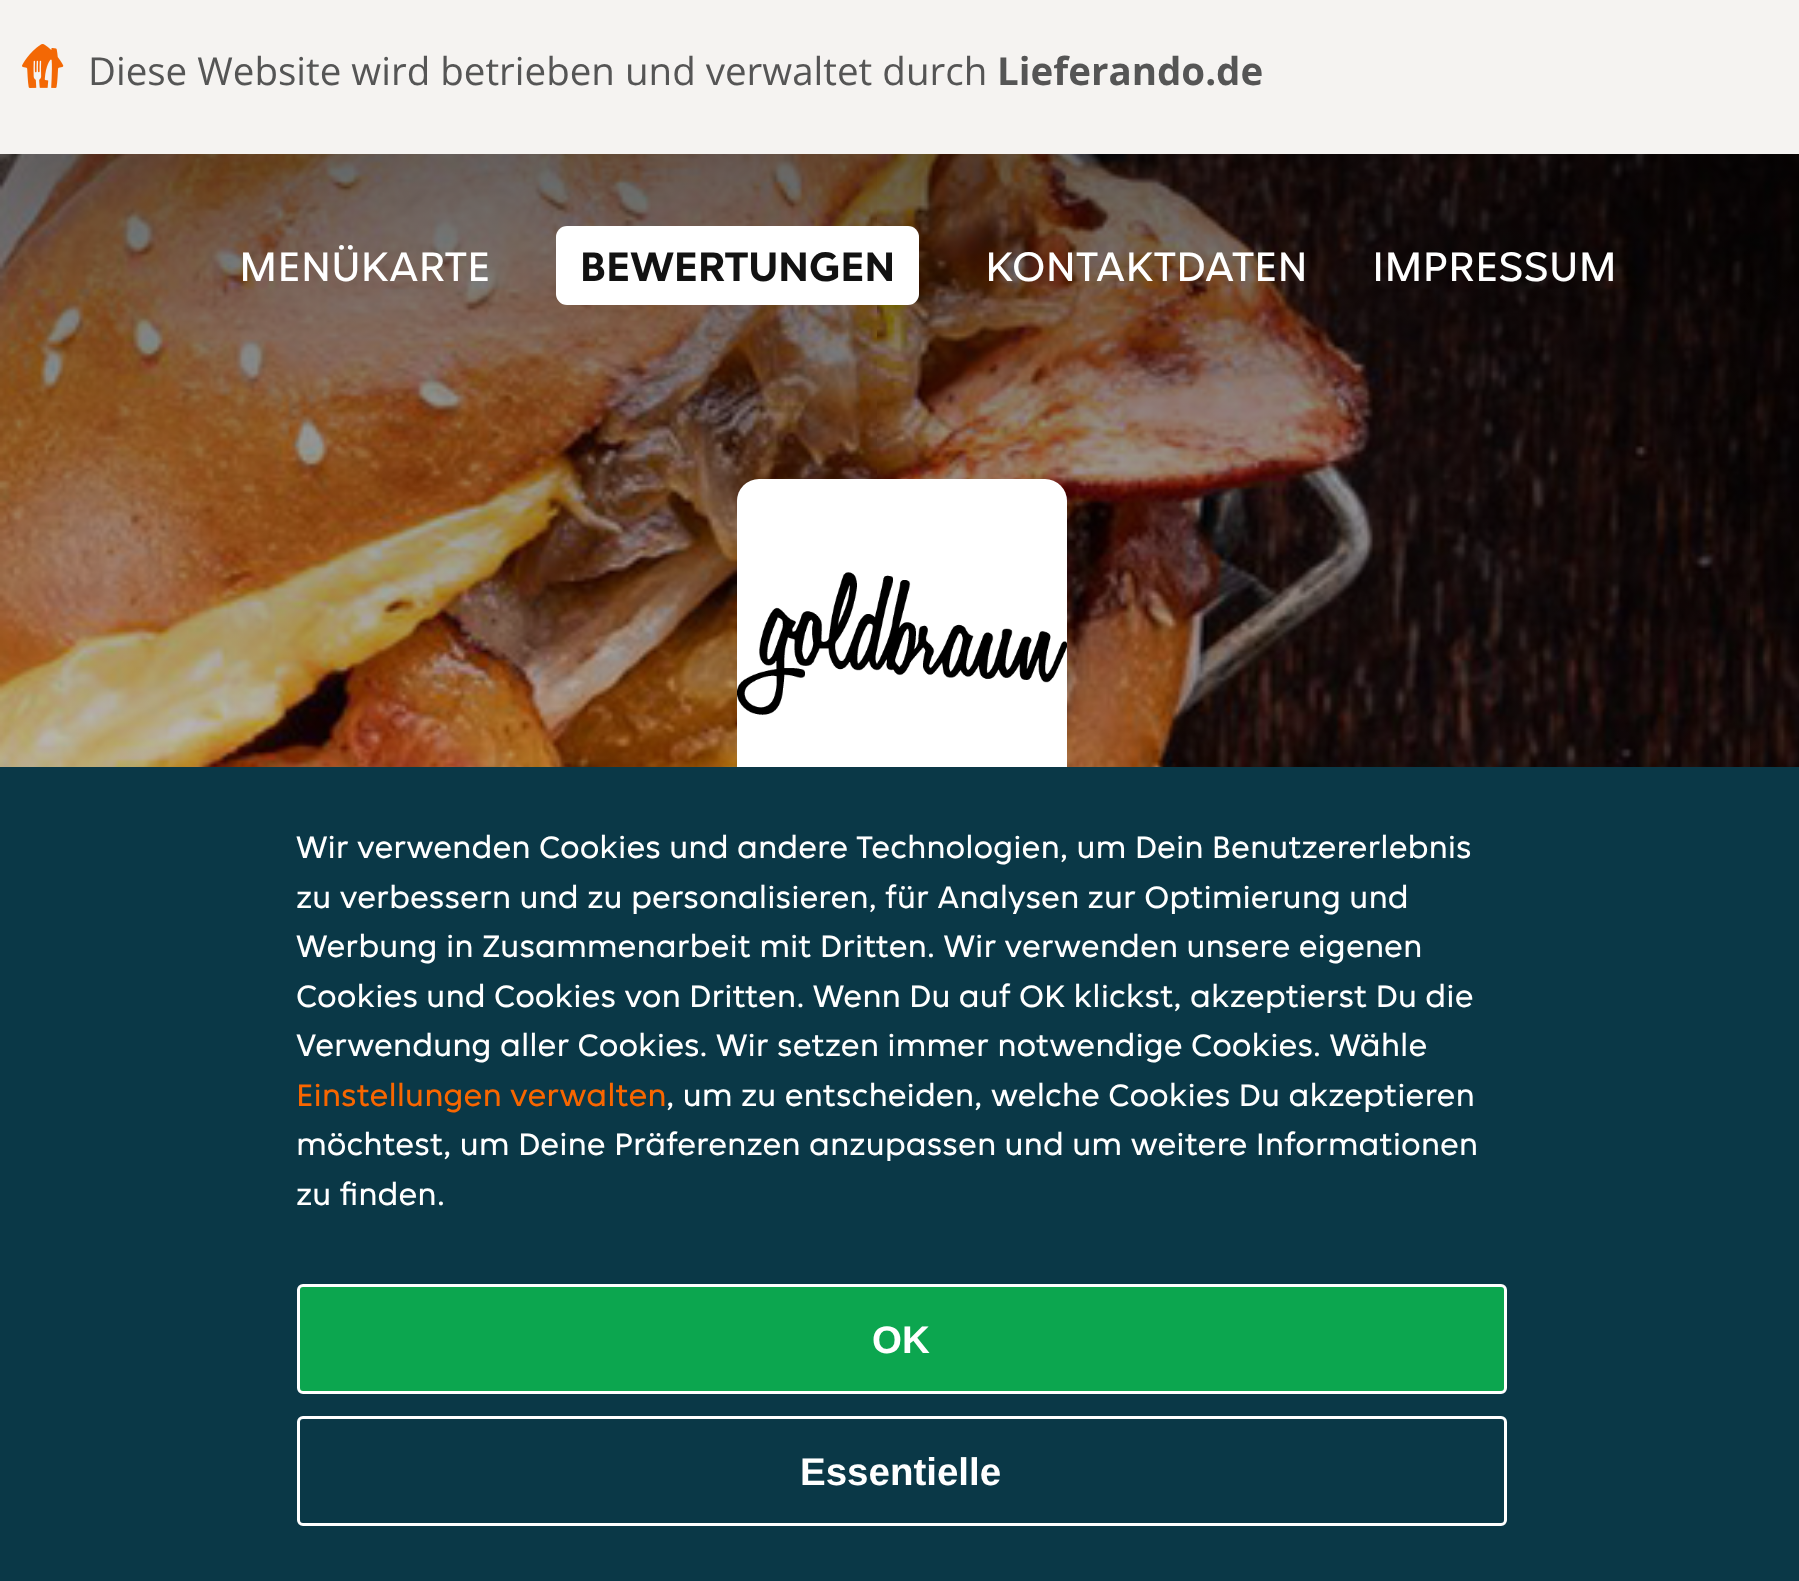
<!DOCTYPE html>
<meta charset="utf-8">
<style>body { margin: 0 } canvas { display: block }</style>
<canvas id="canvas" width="1799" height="1581"></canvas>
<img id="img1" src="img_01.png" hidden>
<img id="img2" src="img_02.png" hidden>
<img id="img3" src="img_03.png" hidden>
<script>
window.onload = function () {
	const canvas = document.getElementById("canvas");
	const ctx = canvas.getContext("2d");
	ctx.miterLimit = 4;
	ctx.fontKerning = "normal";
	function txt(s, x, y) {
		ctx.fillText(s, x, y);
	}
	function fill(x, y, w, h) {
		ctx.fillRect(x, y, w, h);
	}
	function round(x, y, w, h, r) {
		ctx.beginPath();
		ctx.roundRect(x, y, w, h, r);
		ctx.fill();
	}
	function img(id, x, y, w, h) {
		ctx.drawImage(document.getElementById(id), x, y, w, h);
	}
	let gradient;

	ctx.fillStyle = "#FFFFFF";
	fill(0, 0, 1799, 1581);
	ctx.fillStyle = "#F5F3F1";
	fill(0, 0, 1799, 154);
	img("img1", 22, 44, 42, 44);
	img("img2", 0, 154, 1799, 613);
	gradient = ctx.createLinearGradient(901, 0, 901, 1375);
	gradient.addColorStop(0, "rgba(0, 0, 0, 0.7)");
	gradient.addColorStop(0.33, "rgba(0, 0, 0, 0.4)");
	gradient.addColorStop(0.67, "rgba(0, 0, 0, 0.2)");
	gradient.addColorStop(1, "rgba(0, 0, 0, 0)");
	ctx.fillStyle = gradient;
	fill(0, 154, 1799, 613);
	ctx.fillStyle = "#FFFFFF";
	round(556, 226, 363, 79, 11);
	round(737, 479, 330, 330, 22);
	img("img3", 737, 572, 330, 143);
	ctx.fillStyle = "#0A3847";
	fill(0, 767, 1799, 814);
	ctx.fillStyle = "#0CA64F";
	ctx.beginPath();
	ctx.roundRect(298.5, 1285.5, 1207, 107, 4.5);
	ctx.fill();
	ctx.strokeStyle = "#FFFFFF";
	ctx.lineWidth = 3;
	ctx.stroke();
	ctx.beginPath();
	ctx.roundRect(298.5, 1417.5, 1207, 107, 4.5);
	ctx.stroke();
	ctx.font = "38.5px Open Sans";
	ctx.fillStyle = "#555555";
	txt("Diese Website wird betrieben und verwaltet durch", 88, 85);
	ctx.font = "bold 38.5px Open Sans";
	txt("Lieferando.de", 997, 85);
	ctx.font = "44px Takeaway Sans";
	ctx.fillStyle = "#FFFFFF";
	txt("MENÜKARTE", 239, 281);
	ctx.font = "bold 44px Takeaway Sans";
	ctx.fillStyle = "#121212";
	txt("BEWERTUNGEN", 580, 281);
	ctx.font = "44px Takeaway Sans";
	ctx.fillStyle = "#FFFFFF";
	txt("KONTAKTDATEN", 985, 281);
	txt("IMPRESSUM", 1372, 281);
	ctx.font = "33px Takeaway Sans";
	txt("Wir verwenden Cookies und andere Technologien, um Dein Benutzererlebnis", 296, 858);
	txt("zu verbessern und zu personalisieren, für Analysen zur Optimierung und", 296, 908);
	txt("Werbung in Zusammenarbeit mit Dritten. Wir verwenden unsere eigenen", 296, 957);
	txt("Cookies und Cookies von Dritten. Wenn Du auf OK klickst, akzeptierst Du die", 296, 1007);
	txt("Verwendung aller Cookies. Wir setzen immer notwendige Cookies. Wähle", 296, 1056);
	ctx.fillStyle = "#F86600";
	txt("Einstellungen verwalten", 296, 1106);
	ctx.fillStyle = "#FFFFFF";
	txt(", um zu entscheiden, welche Cookies Du akzeptieren", 666, 1106);
	txt("möchtest, um Deine Präferenzen anzupassen und um weitere Informationen", 296, 1155);
	txt("zu finden.", 296, 1205);
	ctx.font = "bold 38.5px Liberation Sans";
	txt("OK", 872, 1353);
	txt("Essentielle", 800, 1485);
};
</script>
